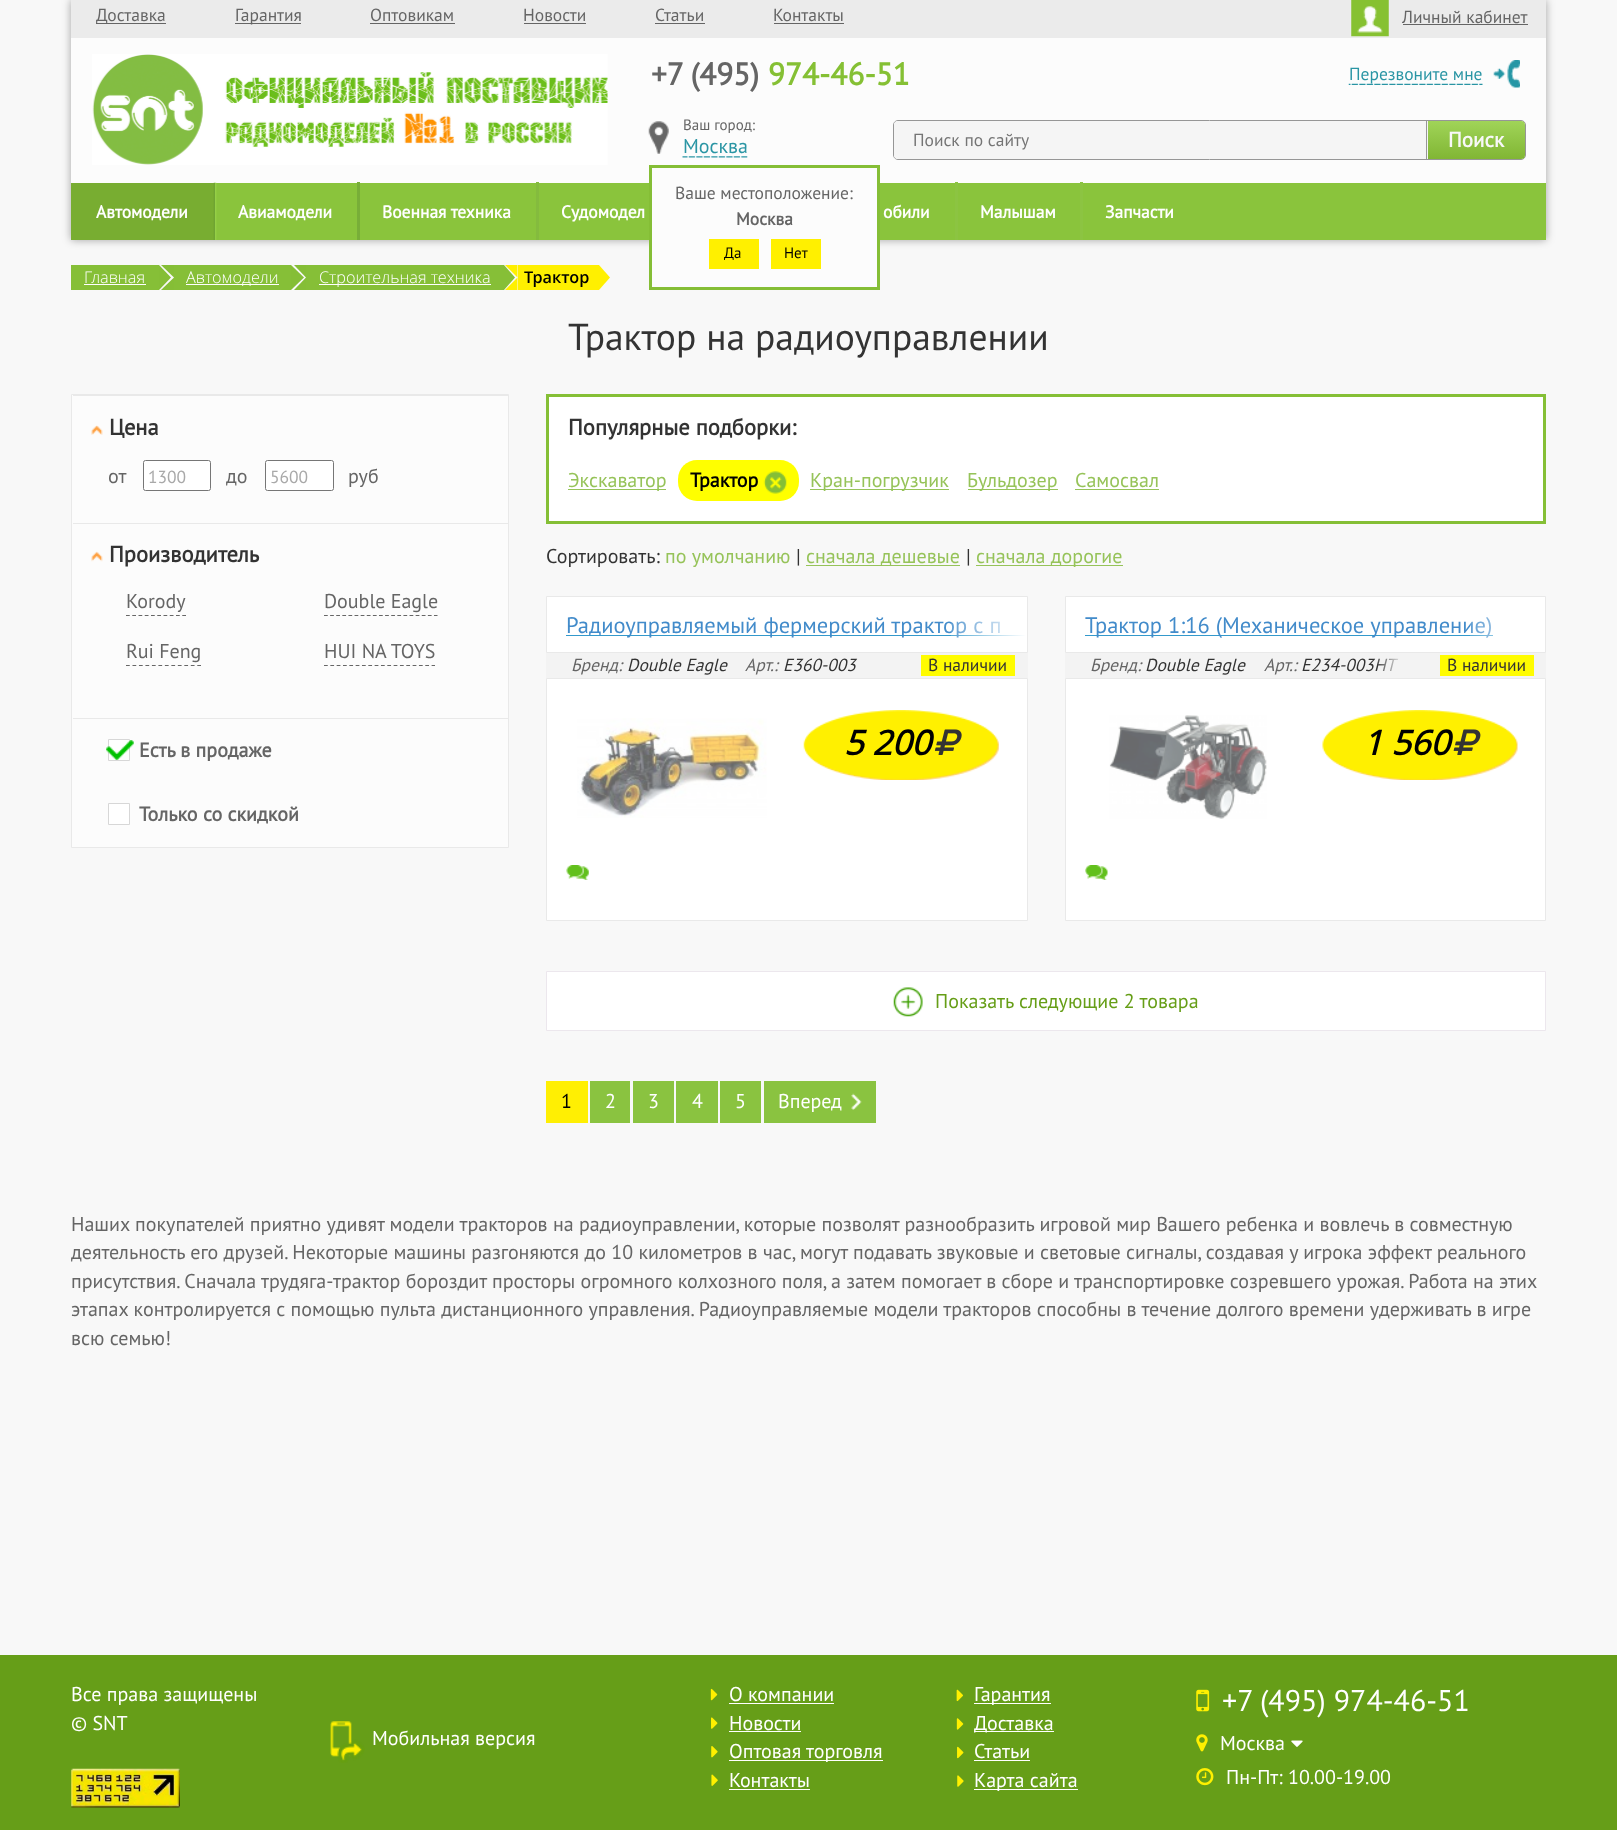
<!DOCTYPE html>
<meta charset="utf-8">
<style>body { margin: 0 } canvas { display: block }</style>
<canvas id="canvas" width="1617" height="1830"></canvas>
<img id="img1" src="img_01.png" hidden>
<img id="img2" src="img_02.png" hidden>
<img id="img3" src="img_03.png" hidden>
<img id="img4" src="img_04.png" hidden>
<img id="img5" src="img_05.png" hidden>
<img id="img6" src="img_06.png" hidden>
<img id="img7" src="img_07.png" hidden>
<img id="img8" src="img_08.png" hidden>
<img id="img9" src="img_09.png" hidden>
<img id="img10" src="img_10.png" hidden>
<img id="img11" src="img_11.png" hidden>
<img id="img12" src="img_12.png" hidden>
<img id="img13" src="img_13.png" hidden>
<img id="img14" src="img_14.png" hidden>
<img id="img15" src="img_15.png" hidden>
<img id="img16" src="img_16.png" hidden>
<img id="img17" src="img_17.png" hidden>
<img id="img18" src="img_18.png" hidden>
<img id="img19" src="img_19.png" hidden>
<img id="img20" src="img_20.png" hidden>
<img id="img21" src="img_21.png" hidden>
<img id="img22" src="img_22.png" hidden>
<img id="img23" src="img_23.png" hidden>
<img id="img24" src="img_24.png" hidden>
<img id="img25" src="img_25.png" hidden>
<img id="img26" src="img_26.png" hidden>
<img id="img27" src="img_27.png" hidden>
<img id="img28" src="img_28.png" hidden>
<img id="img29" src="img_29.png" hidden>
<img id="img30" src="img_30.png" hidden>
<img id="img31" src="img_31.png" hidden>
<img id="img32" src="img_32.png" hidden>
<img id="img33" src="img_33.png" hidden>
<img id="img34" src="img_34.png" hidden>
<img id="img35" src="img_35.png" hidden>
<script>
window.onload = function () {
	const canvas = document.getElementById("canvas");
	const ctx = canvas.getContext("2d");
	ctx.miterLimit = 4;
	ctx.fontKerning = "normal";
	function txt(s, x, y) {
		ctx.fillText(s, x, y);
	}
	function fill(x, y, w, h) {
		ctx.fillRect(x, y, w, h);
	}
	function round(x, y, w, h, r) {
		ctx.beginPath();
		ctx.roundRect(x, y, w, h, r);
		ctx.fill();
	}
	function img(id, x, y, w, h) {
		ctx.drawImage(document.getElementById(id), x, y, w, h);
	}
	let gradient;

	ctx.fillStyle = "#F8F8F8";
	fill(0, 0, 1617, 1830);
	ctx.fillStyle = "rgba(0, 0, 0, 0.35)";
	ctx.filter = "blur(4px)";
	ctx.beginPath();
	ctx.rect(71, 0, 1475, 240);
	ctx.fill();
	ctx.filter = "none";
	ctx.fillStyle = "#FCFCFC";
	fill(71, 38, 1475, 145);
	ctx.fillStyle = "#EBEBEB";
	fill(71, 0, 1475, 38);
	ctx.fillStyle = "#656565";
	fill(96, 23, 70, 1);
	fill(235, 23, 66, 1);
	fill(370, 23, 85, 1);
	fill(524, 23, 62, 1);
	fill(655, 23, 50, 1);
	fill(774, 23, 70, 1);
	img("img1", 1351, 0, 38, 37);
	fill(1403, 24, 125, 1);
	img("img2", 92, 54, 516, 111);
	img("img3", 1493, 60, 27, 28);
	img("img4", 1348, 83, 135, 2);
	img("img5", 648, 121, 21, 33);
	img("img6", 682, 156, 66, 2);
	ctx.fillStyle = "#8AC43C";
	fill(216, 183, 1330, 57);
	ctx.fillStyle = "#FCFCFC";
	fill(652, 183, 225, 104);
	ctx.strokeStyle = "#85BE36";
	ctx.lineWidth = 3;
	ctx.strokeRect(650.5, 166.5, 228, 122);
	ctx.fillStyle = "#FFF000";
	fill(709, 239, 50, 30);
	fill(771, 239, 50, 30);
	ctx.beginPath();
	ctx.roundRect(893.5, 120.5, 632, 39, 4.5);
	ctx.strokeStyle = "#969696";
	ctx.lineWidth = 1;
	ctx.stroke();
	ctx.fillStyle = "#F5F5F5";
	ctx.beginPath();
	ctx.roundRect(894, 121, 534, 38, [4, 0, 0, 4]);
	ctx.fill();
	ctx.fillStyle = "#969696";
	fill(1426, 121, 1, 38);
	gradient = ctx.createLinearGradient(1476, 159, 1476, 121);
	gradient.addColorStop(0, "#81B634");
	gradient.addColorStop(1, "#A0D458");
	ctx.fillStyle = gradient;
	ctx.beginPath();
	ctx.roundRect(1428, 121, 97, 38, [0, 4, 4, 0]);
	ctx.fill();
	ctx.fillStyle = "#78AD31";
	fill(71, 183, 143, 57);
	img("img7", 213, 182, 4, 58);
	ctx.fillStyle = "#78AE38";
	fill(357, 182, 3, 58);
	ctx.fillStyle = "#84BB3E";
	fill(536, 182, 3, 58);
	ctx.fillStyle = "#8CC442";
	fill(955, 182, 3, 58);
	fill(1080, 182, 3, 58);
	ctx.fillStyle = "#85BE36";
	ctx.beginPath();
	ctx.moveTo(159, 290);
	ctx.lineTo(159, 265);
	ctx.lineTo(171, 277.5);
	ctx.closePath();
	ctx.fill();
	ctx.beginPath();
	ctx.moveTo(161, 265);
	ctx.lineTo(174, 265);
	ctx.lineTo(174, 277.5);
	ctx.closePath();
	ctx.fill();
	ctx.beginPath();
	ctx.moveTo(174, 290);
	ctx.lineTo(161, 290);
	ctx.lineTo(174, 277.5);
	ctx.closePath();
	ctx.fill();
	ctx.beginPath();
	ctx.moveTo(291, 290);
	ctx.lineTo(291, 265);
	ctx.lineTo(304, 277.5);
	ctx.closePath();
	ctx.fill();
	ctx.beginPath();
	ctx.moveTo(294, 265);
	ctx.lineTo(306, 265);
	ctx.lineTo(306, 277.5);
	ctx.closePath();
	ctx.fill();
	ctx.beginPath();
	ctx.moveTo(306, 290);
	ctx.lineTo(294, 290);
	ctx.lineTo(306, 277.5);
	ctx.closePath();
	ctx.fill();
	ctx.fillStyle = "#86BF37";
	ctx.beginPath();
	ctx.moveTo(504, 290);
	ctx.lineTo(504, 265);
	ctx.lineTo(515, 277.5);
	ctx.closePath();
	ctx.fill();
	fill(71, 265, 88, 25);
	ctx.fillStyle = "#FFFFFF";
	fill(84, 284, 62, 1);
	ctx.fillStyle = "#86BF37";
	fill(174, 265, 117, 25);
	ctx.fillStyle = "#FFFFFF";
	fill(186, 284, 93, 1);
	ctx.fillStyle = "#86BF37";
	fill(306, 265, 198, 25);
	ctx.fillStyle = "#FFFFFF";
	fill(319, 284, 172, 1);
	ctx.fillStyle = "#FFF000";
	ctx.beginPath();
	ctx.moveTo(505, 265);
	ctx.lineTo(517.5, 265);
	ctx.lineTo(517.5, 277.5);
	ctx.closePath();
	ctx.fill();
	ctx.beginPath();
	ctx.moveTo(517.5, 290);
	ctx.lineTo(505, 290);
	ctx.lineTo(517.5, 277.5);
	ctx.closePath();
	ctx.fill();
	fill(518, 265, 81, 25);
	ctx.beginPath();
	ctx.moveTo(599, 290);
	ctx.lineTo(599, 265);
	ctx.lineTo(610, 277.5);
	ctx.closePath();
	ctx.fill();
	ctx.fillStyle = "#FCFCFC";
	ctx.beginPath();
	ctx.rect(71.5, 394.5, 437, 453);
	ctx.fill();
	ctx.strokeStyle = "#E9E9E9";
	ctx.stroke();
	ctx.fillStyle = "#E9E9E9";
	fill(73, 395, 435, 1);
	img("img8", 91, 425, 12, 10);
	ctx.fillStyle = "#FFFFFF";
	ctx.beginPath();
	ctx.roundRect(143.5, 460.5, 67, 30, 2);
	ctx.fill();
	ctx.strokeStyle = "#767676";
	ctx.stroke();
	ctx.beginPath();
	ctx.roundRect(265.5, 460.5, 68, 30, 2);
	ctx.fill();
	ctx.stroke();
	ctx.fillStyle = "#E9E9E9";
	fill(73, 523, 435, 1);
	img("img9", 91, 551, 12, 11);
	ctx.beginPath();
	ctx.moveTo(126, 615.5);
	ctx.lineTo(186, 615.5);
	ctx.strokeStyle = "#666666";
	ctx.lineWidth = 1.2;
	ctx.setLineDash([3.75, 2.5]);
	ctx.stroke();
	ctx.beginPath();
	ctx.moveTo(324, 615.5);
	ctx.lineTo(437.5, 615.5);
	ctx.setLineDash([3.75, 2.36]);
	ctx.stroke();
	ctx.beginPath();
	ctx.moveTo(126, 665.5);
	ctx.lineTo(201, 665.5);
	ctx.setLineDash([3.75, 2.73]);
	ctx.stroke();
	ctx.beginPath();
	ctx.moveTo(324, 665.5);
	ctx.lineTo(435, 665.5);
	ctx.setLineDash([3.75, 2.58]);
	ctx.stroke();
	fill(73, 718, 435, 1);
	ctx.fillStyle = "#FFFFFF";
	ctx.beginPath();
	ctx.rect(108.5, 739.5, 21, 21);
	ctx.fill();
	ctx.strokeStyle = "#D7D7D7";
	ctx.lineWidth = 1;
	ctx.setLineDash([]);
	ctx.stroke();
	img("img10", 106, 740, 28, 20);
	ctx.beginPath();
	ctx.rect(108.5, 803.5, 21, 21);
	ctx.fill();
	ctx.stroke();
	ctx.beginPath();
	ctx.rect(547.5, 395.5, 997, 127);
	ctx.fill();
	ctx.strokeStyle = "#85BF36";
	ctx.lineWidth = 3;
	ctx.stroke();
	ctx.fillStyle = "#96C359";
	fill(568, 489, 98, 1);
	ctx.fillStyle = "#FFFF00";
	round(678, 460, 121, 41, 19);
	img("img11", 763, 471, 24, 23);
	ctx.fillStyle = "#96C359";
	fill(810, 489, 139, 1);
	fill(968, 489, 90, 1);
	fill(1075, 489, 84, 1);
	fill(806, 565, 154, 1);
	fill(976, 565, 147, 1);
	ctx.fillStyle = "#FFFFFF";
	ctx.beginPath();
	ctx.rect(546.5, 596.5, 481, 56);
	ctx.fill();
	ctx.strokeStyle = "#E9E9E9";
	ctx.lineWidth = 1;
	ctx.stroke();
	ctx.fillStyle = "#3399CC";
	fill(566, 635, 460, 1);
	ctx.fillStyle = "#F3F3F3";
	fill(546, 653, 482, 25);
	ctx.fillStyle = "#FFFC00";
	fill(921, 655, 94, 21);
	ctx.fillStyle = "#FFFFFF";
	ctx.beginPath();
	ctx.rect(546.5, 678.5, 481, 242);
	ctx.fill();
	ctx.stroke();
	img("img12", 577, 718, 190, 100);
	img("img13", 566, 865, 23, 15);
	img("img14", 803, 710, 196, 70);
	img("img15", 934, 729, 28, 26);
	ctx.beginPath();
	ctx.rect(1065.5, 596.5, 480, 56);
	ctx.fill();
	ctx.stroke();
	ctx.fillStyle = "#3399CC";
	fill(1085, 635, 408, 1);
	ctx.fillStyle = "#F3F3F3";
	fill(1065, 653, 481, 25);
	ctx.fillStyle = "#FFFC00";
	fill(1440, 655, 94, 21);
	ctx.fillStyle = "#FFFFFF";
	ctx.beginPath();
	ctx.rect(1065.5, 678.5, 480, 242);
	ctx.fill();
	ctx.stroke();
	img("img16", 1109, 715, 158, 104);
	img("img17", 1085, 865, 23, 15);
	img("img18", 1322, 710, 196, 70);
	img("img19", 1453, 729, 28, 26);
	ctx.beginPath();
	ctx.rect(546.5, 971.5, 999, 59);
	ctx.fill();
	ctx.strokeStyle = "#ECE7ED";
	ctx.stroke();
	img("img20", 893, 987, 30, 30);
	ctx.fillStyle = "#FFEF03";
	fill(546, 1081, 42, 42);
	ctx.fillStyle = "#8AC340";
	fill(590, 1081, 40, 42);
	fill(633, 1081, 41, 42);
	fill(676, 1081, 42, 42);
	fill(720, 1081, 41, 42);
	fill(764, 1081, 112, 42);
	img("img21", 851, 1093, 11, 17);
	ctx.fillStyle = "#669E18";
	fill(0, 1655, 1617, 175);
	img("img22", 71, 1768, 109, 40);
	img("img23", 330, 1721, 35, 42);
	img("img24", 710, 1688, 8, 13);
	ctx.fillStyle = "#FFFFFF";
	fill(729, 1703, 105, 1);
	img("img25", 711, 1717, 7, 12);
	fill(729, 1731, 72, 1);
	img("img26", 711, 1746, 7, 12);
	fill(729, 1760, 154, 1);
	img("img27", 711, 1774, 7, 12);
	fill(729, 1789, 81, 1);
	img("img28", 956, 1689, 7, 13);
	fill(974, 1703, 77, 1);
	img("img29", 956, 1718, 8, 12);
	fill(974, 1731, 80, 1);
	img("img30", 957, 1746, 7, 13);
	fill(974, 1760, 56, 1);
	img("img31", 957, 1775, 7, 12);
	fill(974, 1789, 104, 1);
	img("img32", 1196, 1689, 14, 23);
	img("img33", 1196, 1734, 12, 18);
	img("img34", 1291, 1740, 12, 7);
	img("img35", 1196, 1768, 18, 18);
	ctx.font = "17.5px PT Sans";
	ctx.fillStyle = "#656565";
	txt("Доставка", 96, 21);
	txt("Гарантия", 235, 21);
	txt("Оптовикам", 370, 21);
	txt("Новости", 523, 21);
	txt("Статьи", 655, 21);
	txt("Контакты", 773, 21);
	txt("Личный кабинет", 1402, 23);
	ctx.font = "bold 31.25px PT Sans";
	txt("+7 (495)", 651, 85);
	ctx.fillStyle = "#85C034";
	txt("974-46-51", 768, 85);
	ctx.font = "17.5px PT Sans";
	ctx.fillStyle = "#2A95A4";
	txt("Перезвоните мне", 1349, 80);
	ctx.font = "15px PT Sans";
	ctx.fillStyle = "#656565";
	txt("Ваш город:", 683, 130);
	ctx.font = "20px PT Sans";
	ctx.fillStyle = "#2A95A4";
	txt("Москва", 683, 153);
	ctx.font = "17.5px PT Sans";
	ctx.fillStyle = "#656565";
	txt("Ваше местоположение:", 675, 199);
	ctx.font = "bold 17.5px PT Sans";
	txt("Москва", 736, 225);
	ctx.font = "15px PT Sans";
	ctx.fillStyle = "#000000";
	txt("Да", 724, 258);
	txt("Нет", 784, 258);
	ctx.font = "17.5px PT Sans";
	ctx.fillStyle = "#757575";
	txt("Поиск по сайту", 913, 146);
	ctx.font = "bold 21px PT Sans";
	ctx.fillStyle = "#F8F8F8";
	txt("Поиск", 1448, 147);
	ctx.font = "bold 17.5px PT Sans";
	ctx.fillStyle = "#FFFFFF";
	txt("Автомодели", 96, 218);
	txt("Авиамодели", 238, 218);
	txt("Военная техника", 382, 218);
	txt("Судомодел", 561, 218);
	txt("обили", 883, 218);
	txt("Малышам", 980, 218);
	txt("Запчасти", 1105, 218);
	ctx.font = "300 16.25px Open Sans";
	txt("Главная", 84, 283);
	txt("Автомодели", 186, 283);
	txt("Строительная техника", 319, 283);
	ctx.font = "600 16.25px Open Sans";
	ctx.fillStyle = "#000000";
	txt("Трактор", 524, 283);
	ctx.font = "37.5px PT Sans";
	ctx.fillStyle = "#333333";
	txt("Трактор на радиоуправлении", 568, 350);
	ctx.font = "bold 22.5px PT Sans";
	txt("Цена", 109, 435);
	ctx.font = "20px PT Sans";
	ctx.fillStyle = "#656565";
	txt("от", 108, 483);
	ctx.font = "17.5px PT Sans";
	ctx.fillStyle = "#A9A9A9";
	txt("1300", 148, 483);
	ctx.font = "20px PT Sans";
	ctx.fillStyle = "#656565";
	txt("до", 226, 483);
	ctx.font = "17.5px PT Sans";
	ctx.fillStyle = "#A9A9A9";
	txt("5600", 270, 483);
	ctx.font = "20px PT Sans";
	ctx.fillStyle = "#656565";
	txt("руб", 348, 483);
	ctx.font = "bold 22.5px PT Sans";
	ctx.fillStyle = "#333333";
	txt("Производитель", 109, 562);
	ctx.font = "20px PT Sans";
	ctx.fillStyle = "#656565";
	txt("Korody", 126, 608);
	txt("Double Eagle", 324, 608);
	txt("Rui Feng", 126, 658);
	txt("HUI NA TOYS", 324, 658);
	ctx.font = "bold 20px PT Sans";
	txt("Есть в продаже", 139, 757);
	txt("Только со скидкой", 139, 821);
	ctx.font = "bold 22.5px PT Sans";
	ctx.fillStyle = "#333333";
	txt("Популярные подборки:", 568, 435);
	ctx.font = "20px PT Sans";
	ctx.fillStyle = "#96C359";
	txt("Экскаватор", 568, 487);
	ctx.font = "bold 20px PT Sans";
	ctx.fillStyle = "#000000";
	txt("Трактор", 690, 487);
	ctx.font = "20px PT Sans";
	ctx.fillStyle = "#96C359";
	txt("Кран-погрузчик", 810, 487);
	txt("Бульдозер", 967, 487);
	txt("Самосвал", 1075, 487);
	ctx.fillStyle = "#333333";
	txt("Сортировать:", 546, 563);
	ctx.fillStyle = "#96C359";
	txt("по умолчанию", 665, 563);
	ctx.fillStyle = "#333333";
	txt("|", 796, 563);
	ctx.fillStyle = "#96C359";
	txt("сначала дешевые", 806, 563);
	ctx.fillStyle = "#333333";
	txt("|", 966, 563);
	ctx.fillStyle = "#96C359";
	txt("сначала дорогие", 976, 563);
	ctx.font = "22.5px PT Sans";
	ctx.fillStyle = "#428BCA";
	txt("Радиоуправляемый фермерский трактор с п", 566, 633);
	gradient = ctx.createLinearGradient(951, 624, 1026, 624);
	gradient.addColorStop(0, "rgba(255, 255, 255, 0.15)");
	gradient.addColorStop(1, "#FFFFFF");
	ctx.fillStyle = gradient;
	fill(951, 621, 75, 17);
	ctx.font = "italic 17.5px PT Sans";
	ctx.fillStyle = "#656565";
	txt("Бренд:", 571, 671);
	ctx.fillStyle = "#333333";
	txt("Double Eagle", 627, 671);
	ctx.fillStyle = "#656565";
	txt("Арт.:", 745, 671);
	ctx.fillStyle = "#333333";
	txt("E360-003", 783, 671);
	ctx.font = "17.5px PT Sans";
	txt("В наличии", 928, 671);
	ctx.font = "italic bold 34px Open Sans";
	ctx.fillStyle = "#000000";
	txt("5 200", 844, 755);
	ctx.font = "22.5px PT Sans";
	ctx.fillStyle = "#428BCA";
	txt("Трактор 1:16 (Механическое управление)", 1085, 633);
	gradient = ctx.createLinearGradient(1470, 624, 1545, 624);
	gradient.addColorStop(0, "rgba(255, 255, 255, 0.15)");
	gradient.addColorStop(1, "#FFFFFF");
	ctx.fillStyle = gradient;
	fill(1470, 617, 23, 21);
	ctx.font = "italic 17.5px PT Sans";
	ctx.fillStyle = "#656565";
	txt("Бренд:", 1090, 671);
	ctx.fillStyle = "#333333";
	txt("Double Eagle", 1145, 671);
	ctx.fillStyle = "#656565";
	txt("Арт.:", 1264, 671);
	ctx.fillStyle = "#333333";
	txt("E234-003HT", 1301, 671);
	gradient = ctx.createLinearGradient(1378, 665, 1403, 665);
	gradient.addColorStop(0, "rgba(243, 243, 243, 0.15)");
	gradient.addColorStop(1, "#F3F3F3");
	ctx.fillStyle = gradient;
	fill(1378, 658, 21, 13);
	ctx.font = "17.5px PT Sans";
	ctx.fillStyle = "#333333";
	txt("В наличии", 1447, 671);
	ctx.font = "italic bold 34px Open Sans";
	ctx.fillStyle = "#000000";
	txt("1 560", 1363, 755);
	ctx.font = "20px PT Sans";
	ctx.fillStyle = "#669E17";
	txt("Показать следующие 2 товара", 935, 1008);
	ctx.fillStyle = "#000000";
	txt("1", 561, 1108);
	ctx.fillStyle = "#FFFFFF";
	txt("2", 605, 1108);
	txt("3", 648, 1108);
	txt("4", 692, 1108);
	txt("5", 735, 1108);
	txt("Вперед", 778, 1108);
	ctx.fillStyle = "#656565";
	txt("Наших покупателей приятно удивят модели тракторов на радиоуправлении, которые позволят разнообразить игровой мир Вашего ребенка и вовлечь в совместную", 71, 1231);
	txt("деятельность его друзей. Некоторые машины разгоняются до 10 километров в час, могут подавать звуковые и световые сигналы, создавая у игрока эффект реального", 71, 1259);
	txt("присутствия. Сначала трудяга-трактор бороздит просторы огромного колхозного поля, а затем помогает в сборе и транспортировке созревшего урожая. Работа на этих", 71, 1288);
	txt("этапах контролируется с помощью пульта дистанционного управления. Радиоуправляемые модели тракторов способны в течение долгого времени удерживать в игре", 71, 1316);
	txt("всю семью!", 71, 1345);
	ctx.fillStyle = "#FFFFFF";
	txt("Все права защищены", 71, 1701);
	txt("© SNT", 71, 1730);
	txt("Мобильная версия", 372, 1745);
	txt("О компании", 729, 1701);
	txt("Новости", 729, 1730);
	txt("Оптовая торговля", 729, 1758);
	txt("Контакты", 729, 1787);
	txt("Гарантия", 974, 1701);
	txt("Доставка", 974, 1730);
	txt("Статьи", 974, 1758);
	txt("Карта сайта", 974, 1787);
	ctx.font = "30px PT Sans";
	txt("+7 (495) 974-46-51", 1222, 1711);
	ctx.font = "20px PT Sans";
	txt("Москва", 1220, 1750);
	txt("Пн-Пт: 10.00-19.00", 1226, 1784);
};
</script>
